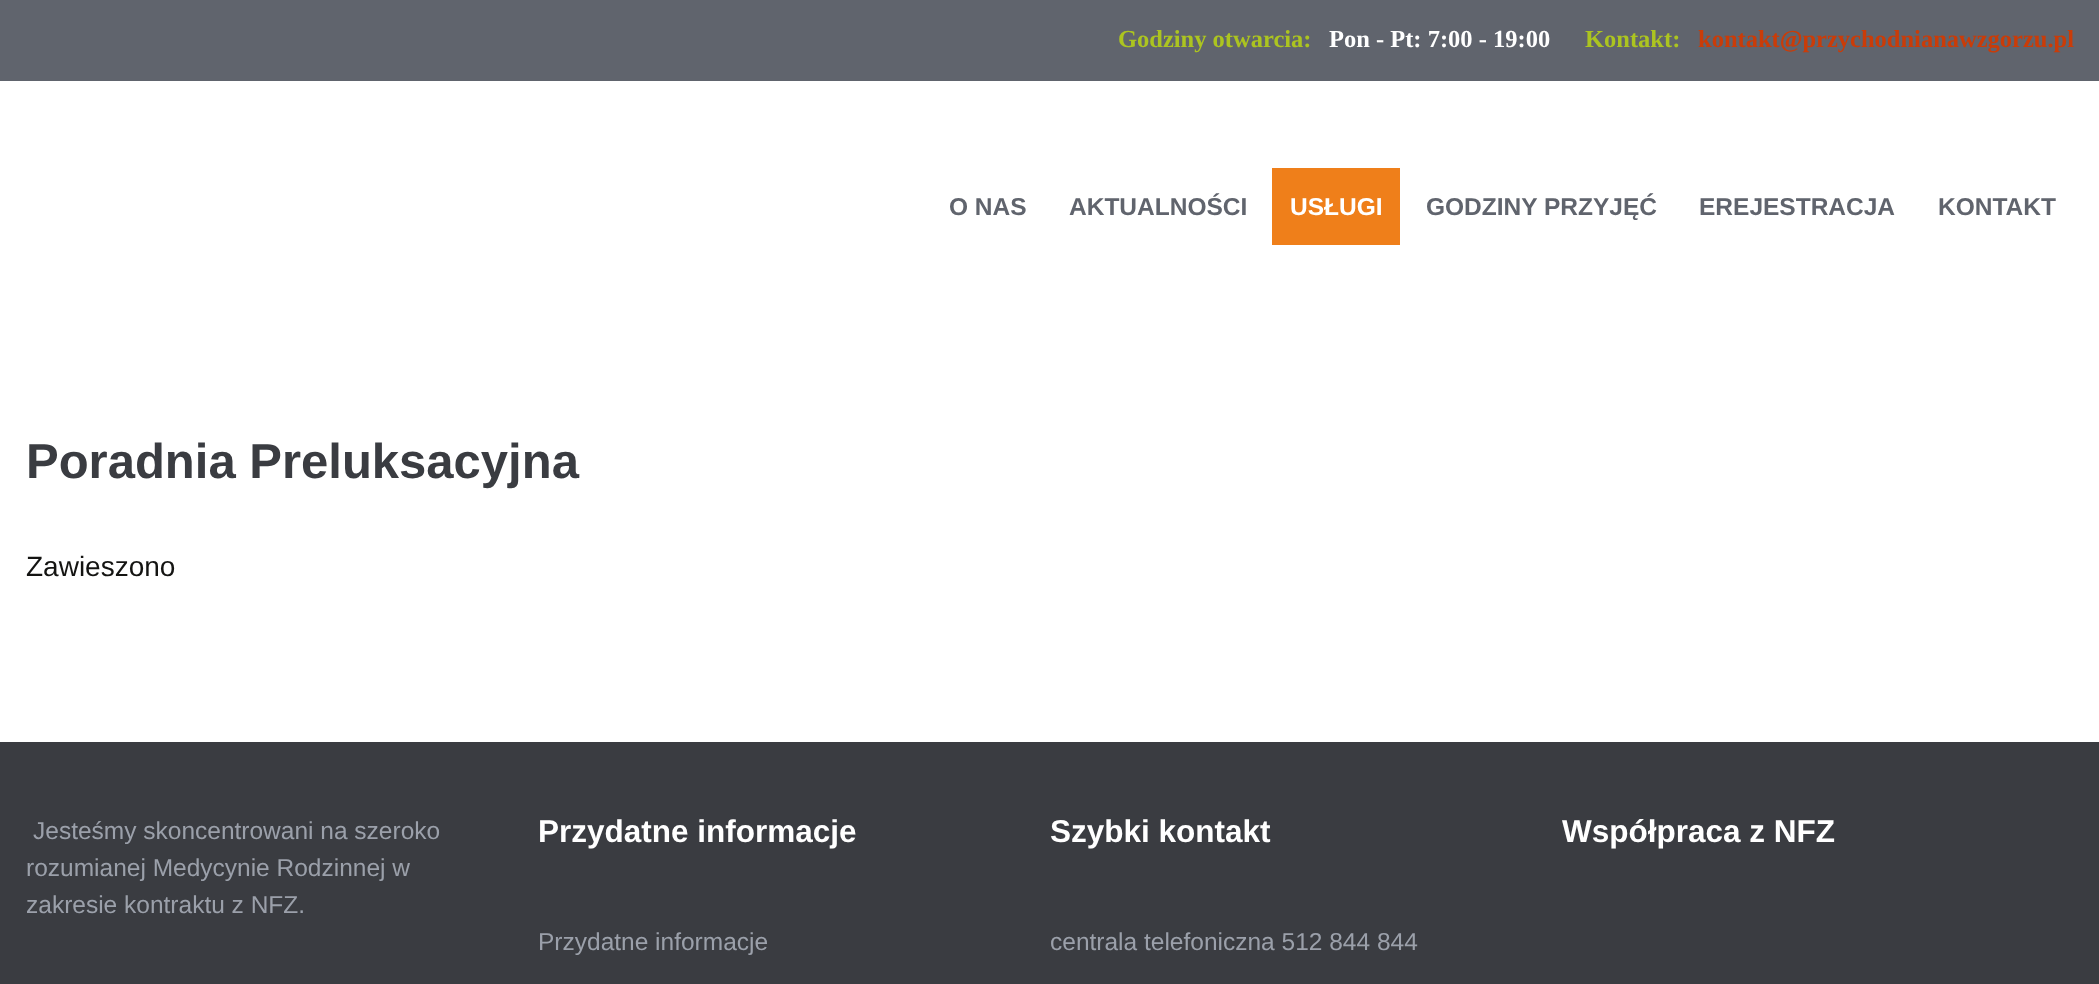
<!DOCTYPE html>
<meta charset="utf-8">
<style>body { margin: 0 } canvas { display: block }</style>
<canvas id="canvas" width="2099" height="984"></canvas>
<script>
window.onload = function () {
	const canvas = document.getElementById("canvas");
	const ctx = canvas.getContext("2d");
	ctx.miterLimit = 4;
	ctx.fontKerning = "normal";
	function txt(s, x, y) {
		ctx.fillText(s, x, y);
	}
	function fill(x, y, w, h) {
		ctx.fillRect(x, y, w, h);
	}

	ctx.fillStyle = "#FFFFFF";
	fill(0, 0, 2099, 984);
	ctx.fillStyle = "#60646D";
	fill(0, 0, 2099, 81);
	ctx.fillStyle = "#EF7F1A";
	fill(1272, 168, 128, 77);
	ctx.fillStyle = "#3A3C41";
	fill(0, 742, 2099, 242);
	ctx.font = "bold 24.5px Liberation Serif";
	ctx.fillStyle = "#ACC420";
	txt("Godziny otwarcia:", 1118, 47);
	ctx.fillStyle = "#FFFFFF";
	txt("Pon - Pt: 7:00 - 19:00", 1329, 47);
	ctx.fillStyle = "#ACC420";
	txt("Kontakt:", 1585, 47);
	ctx.fillStyle = "#CA3C08";
	txt("kontakt@przychodnianawzgorzu.pl", 1698, 47);
	ctx.font = "bold 24.5px Liberation Sans";
	ctx.fillStyle = "#60646D";
	txt("O NAS", 949, 215);
	txt("AKTUALNOŚCI", 1069, 215);
	ctx.fillStyle = "#FFFFFF";
	txt("USŁUGI", 1290, 215);
	ctx.fillStyle = "#60646D";
	txt("GODZINY PRZYJĘĆ", 1426, 215);
	txt("EREJESTRACJA", 1699, 215);
	txt("KONTAKT", 1938, 215);
	ctx.font = "bold 49px Liberation Sans";
	ctx.fillStyle = "#3A3C41";
	txt("Poradnia Preluksacyjna", 26, 478);
	ctx.font = "28px Liberation Sans";
	ctx.fillStyle = "#141412";
	txt("Zawieszono", 26, 576);
	ctx.font = "24.5px Liberation Sans";
	ctx.fillStyle = "#9BA0AA";
	txt("Jesteśmy skoncentrowani na szeroko", 33, 839);
	txt("rozumianej Medycynie Rodzinnej w", 26, 876);
	txt("zakresie kontraktu z NFZ.", 26, 913);
	ctx.font = "bold 31.5px Liberation Sans";
	ctx.fillStyle = "#FFFFFF";
	txt("Przydatne informacje", 538, 842);
	ctx.font = "24.5px Liberation Sans";
	ctx.fillStyle = "#9BA0AA";
	txt("Przydatne informacje", 538, 950);
	ctx.font = "bold 31.5px Liberation Sans";
	ctx.fillStyle = "#FFFFFF";
	txt("Szybki kontakt", 1050, 842);
	ctx.font = "24.5px Liberation Sans";
	ctx.fillStyle = "#9BA0AA";
	txt("centrala telefoniczna 512 844 844", 1050, 950);
	ctx.font = "bold 31.5px Liberation Sans";
	ctx.fillStyle = "#FFFFFF";
	txt("Współpraca z NFZ", 1562, 842);
};
</script>
